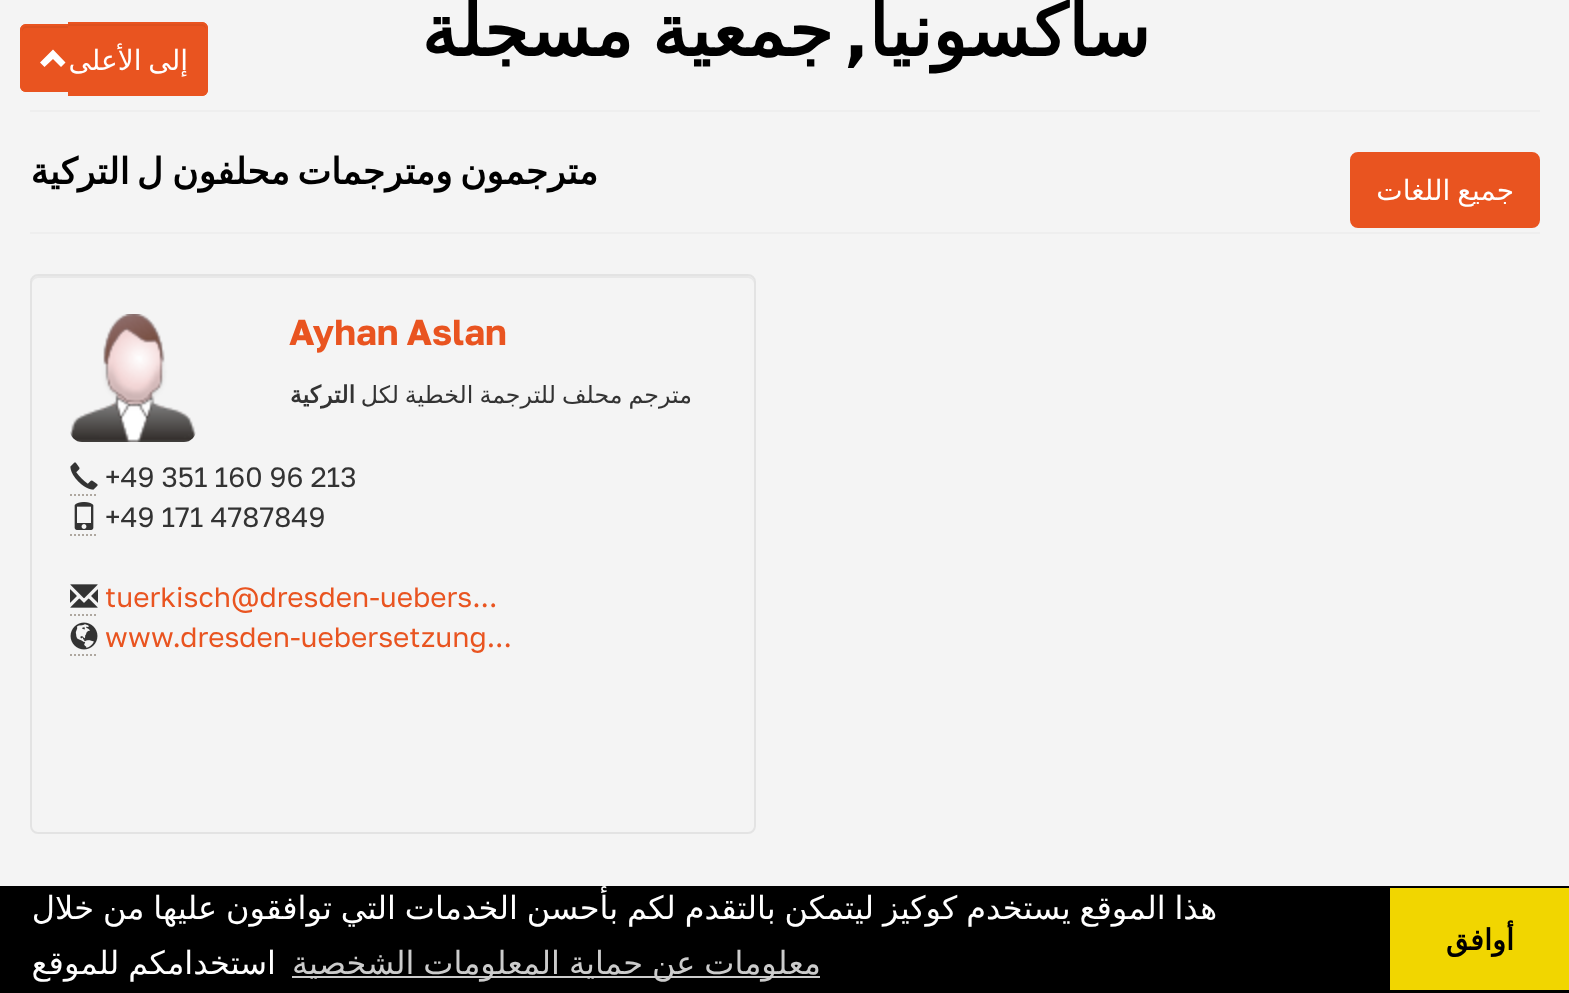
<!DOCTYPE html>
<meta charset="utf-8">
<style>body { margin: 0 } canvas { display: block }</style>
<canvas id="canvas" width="1569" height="993"></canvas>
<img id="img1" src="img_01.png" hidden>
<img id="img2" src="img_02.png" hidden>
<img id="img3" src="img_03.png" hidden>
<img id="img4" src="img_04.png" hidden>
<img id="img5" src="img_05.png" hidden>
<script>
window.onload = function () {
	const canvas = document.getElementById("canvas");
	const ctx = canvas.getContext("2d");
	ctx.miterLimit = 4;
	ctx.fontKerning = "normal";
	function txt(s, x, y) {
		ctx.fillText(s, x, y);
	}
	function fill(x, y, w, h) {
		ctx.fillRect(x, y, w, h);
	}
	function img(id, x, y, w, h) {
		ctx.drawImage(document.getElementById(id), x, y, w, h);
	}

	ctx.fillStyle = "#F4F4F4";
	fill(0, 0, 1569, 993);
	ctx.fillStyle = "#EEEEEE";
	fill(30, 110, 1510, 2);
	ctx.fillStyle = "#E95420";
	ctx.beginPath();
	ctx.roundRect(1351, 153, 188, 74, 7);
	ctx.fill();
	ctx.strokeStyle = "#E95420";
	ctx.lineWidth = 2;
	ctx.stroke();
	ctx.fillStyle = "#EEEEEE";
	fill(30, 232, 1510, 2);
	ctx.fillStyle = "#E8E8E8";
	ctx.beginPath();
	ctx.moveTo(38, 278);
	ctx.lineTo(748, 278);
	ctx.bezierCurveTo(751, 278, 754, 281, 754, 284);
	ctx.lineTo(754, 282);
	ctx.bezierCurveTo(754, 279, 751, 276, 748, 276);
	ctx.lineTo(38, 276);
	ctx.bezierCurveTo(35, 276, 32, 279, 32, 282);
	ctx.lineTo(32, 284);
	ctx.bezierCurveTo(32, 281, 35, 278, 38, 278);
	ctx.closePath();
	ctx.fill();
	ctx.beginPath();
	ctx.roundRect(31, 275, 724, 558, 7);
	ctx.strokeStyle = "#E3E3E3";
	ctx.stroke();
	img("img1", 70, 314, 126, 128);
	ctx.beginPath();
	ctx.moveTo(70, 495);
	ctx.lineTo(98, 495);
	ctx.strokeStyle = "#AEA79F";
	ctx.setLineDash([2, 2]);
	ctx.stroke();
	img("img2", 70, 462, 28, 28);
	ctx.beginPath();
	ctx.moveTo(70, 535);
	ctx.lineTo(98, 535);
	ctx.stroke();
	img("img3", 74, 502, 20, 28);
	ctx.beginPath();
	ctx.moveTo(70, 615);
	ctx.lineTo(98, 615);
	ctx.stroke();
	img("img4", 70, 584, 28, 24);
	ctx.beginPath();
	ctx.moveTo(70, 655);
	ctx.lineTo(98, 655);
	ctx.stroke();
	img("img5", 70, 622, 28, 28);
	ctx.fillStyle = "#E95420";
	ctx.beginPath();
	ctx.roundRect(20, 24, 48, 68, [6, 0, 0, 6]);
	ctx.fill();
	ctx.fillStyle = "#DD501E";
	ctx.beginPath();
	ctx.moveTo(26, 28);
	ctx.lineTo(68, 28);
	ctx.lineTo(68, 26);
	ctx.lineTo(26, 26);
	ctx.bezierCurveTo(24, 26, 22, 28, 22, 30);
	ctx.lineTo(22, 32);
	ctx.bezierCurveTo(22, 30, 24, 28, 26, 28);
	ctx.closePath();
	ctx.fill();
	ctx.fillStyle = "#E95420";
	ctx.beginPath();
	ctx.moveTo(26, 24);
	ctx.lineTo(68, 24);
	ctx.lineTo(68, 92);
	ctx.lineTo(26, 92);
	ctx.bezierCurveTo(23, 92, 20, 89, 20, 86);
	ctx.lineTo(20, 30);
	ctx.bezierCurveTo(20, 27, 23, 24, 26, 24);
	ctx.closePath();
	ctx.moveTo(26, 26);
	ctx.lineTo(68, 26);
	ctx.lineTo(68, 90);
	ctx.lineTo(26, 90);
	ctx.bezierCurveTo(24, 90, 22, 88, 22, 86);
	ctx.lineTo(22, 30);
	ctx.bezierCurveTo(22, 28, 24, 26, 26, 26);
	ctx.closePath();
	ctx.fill("evenodd");
	ctx.beginPath();
	ctx.roundRect(68, 22, 140, 74, [0, 6, 6, 0]);
	ctx.fill();
	ctx.fillStyle = "#DD501E";
	ctx.beginPath();
	ctx.moveTo(68, 26);
	ctx.lineTo(202, 26);
	ctx.bezierCurveTo(204, 26, 206, 28, 206, 30);
	ctx.lineTo(206, 28);
	ctx.bezierCurveTo(206, 26, 204, 24, 202, 24);
	ctx.lineTo(68, 24);
	ctx.closePath();
	ctx.fill();
	ctx.fillStyle = "#E95420";
	ctx.beginPath();
	ctx.moveTo(68, 22);
	ctx.lineTo(202, 22);
	ctx.bezierCurveTo(205, 22, 208, 25, 208, 28);
	ctx.lineTo(208, 90);
	ctx.bezierCurveTo(208, 93, 205, 96, 202, 96);
	ctx.lineTo(68, 96);
	ctx.closePath();
	ctx.moveTo(68, 24);
	ctx.lineTo(202, 24);
	ctx.bezierCurveTo(204, 24, 206, 26, 206, 28);
	ctx.lineTo(206, 90);
	ctx.bezierCurveTo(206, 92, 204, 94, 202, 94);
	ctx.lineTo(68, 94);
	ctx.closePath();
	ctx.fill("evenodd");
	ctx.fillStyle = "#FFFFFF";
	ctx.beginPath();
	ctx.moveTo(65.5, 62.5);
	ctx.lineTo(61, 67);
	ctx.lineTo(53, 59);
	ctx.lineTo(44.5, 67);
	ctx.lineTo(40, 62.5);
	ctx.lineTo(53, 49.5);
	ctx.closePath();
	ctx.fill();
	ctx.fillStyle = "#000000";
	fill(0, 886, 1569, 107);
	ctx.fillStyle = "#F1D600";
	fill(1390, 888, 179, 102);
	ctx.fillStyle = "#CCCCCC";
	fill(292, 976, 528, 2);
	ctx.direction = "rtl";
	ctx.font = "bold 72px DejaVu Sans";
	ctx.fillStyle = "#000000";
	txt("ساكسونيا", 1150, 56);
	ctx.font = "bold 72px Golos";
	txt(",", 868, 56);
	ctx.wordSpacing = "-4px";
	ctx.font = "bold 72px DejaVu Sans";
	txt("جمعية مسجلة", 833, 56);
	ctx.wordSpacing = "-2px";
	ctx.font = "28px DejaVu Sans";
	ctx.fillStyle = "#FFFFFF";
	txt("جميع اللغات", 1514, 200);
	ctx.wordSpacing = "-4px";
	ctx.font = "bold 36px DejaVu Sans";
	ctx.fillStyle = "#000000";
	txt("مترجمون ومترجمات محلفون", 598, 184);
	txt("ل التركية", 163, 184);
	ctx.wordSpacing = "0px";
	ctx.direction = "ltr";
	ctx.font = "bold 36px Golos";
	ctx.fillStyle = "#E95420";
	txt("Ayhan Aslan", 289, 345);
	ctx.wordSpacing = "-1.5px";
	ctx.direction = "rtl";
	ctx.font = "23.75px DejaVu Sans";
	ctx.fillStyle = "#333333";
	txt("مترجم محلف للترجمة الخطية", 692, 403);
	ctx.wordSpacing = "0px";
	txt("لكل", 399, 403);
	ctx.font = "bold 23.75px DejaVu Sans";
	txt("التركية", 355, 403);
	ctx.direction = "ltr";
	ctx.font = "28px Golos";
	txt("+49 351 160 96 213", 105, 487);
	txt("+49 171 4787849", 105, 527);
	ctx.fillStyle = "#E95420";
	txt("tuerkisch@dresden-uebers...", 105, 607);
	txt("www.dresden-uebersetzung...", 105, 647);
	ctx.wordSpacing = "-2px";
	ctx.direction = "rtl";
	ctx.font = "28px DejaVu Sans";
	ctx.fillStyle = "#FFFFFF";
	txt("إلى الأعلى", 188, 70);
	ctx.wordSpacing = "0px";
	ctx.font = "bold 29px DejaVu Sans";
	ctx.fillStyle = "#000000";
	txt("أوافق", 1514, 950);
	ctx.wordSpacing = "-1.25px";
	ctx.font = "32px DejaVu Sans";
	ctx.fillStyle = "#FFFFFF";
	txt("هذا الموقع يستخدم كوكيز ليتمكن بالتقدم لكم بأحسن الخدمات التي توافقون عليها من خلال", 1217, 919);
	ctx.fillStyle = "#CCCCCC";
	txt("معلومات عن حماية المعلومات الشخصية", 821, 974);
	ctx.fillStyle = "#FFFFFF";
	txt("استخدامكم للموقع", 276, 974);
};
</script>
